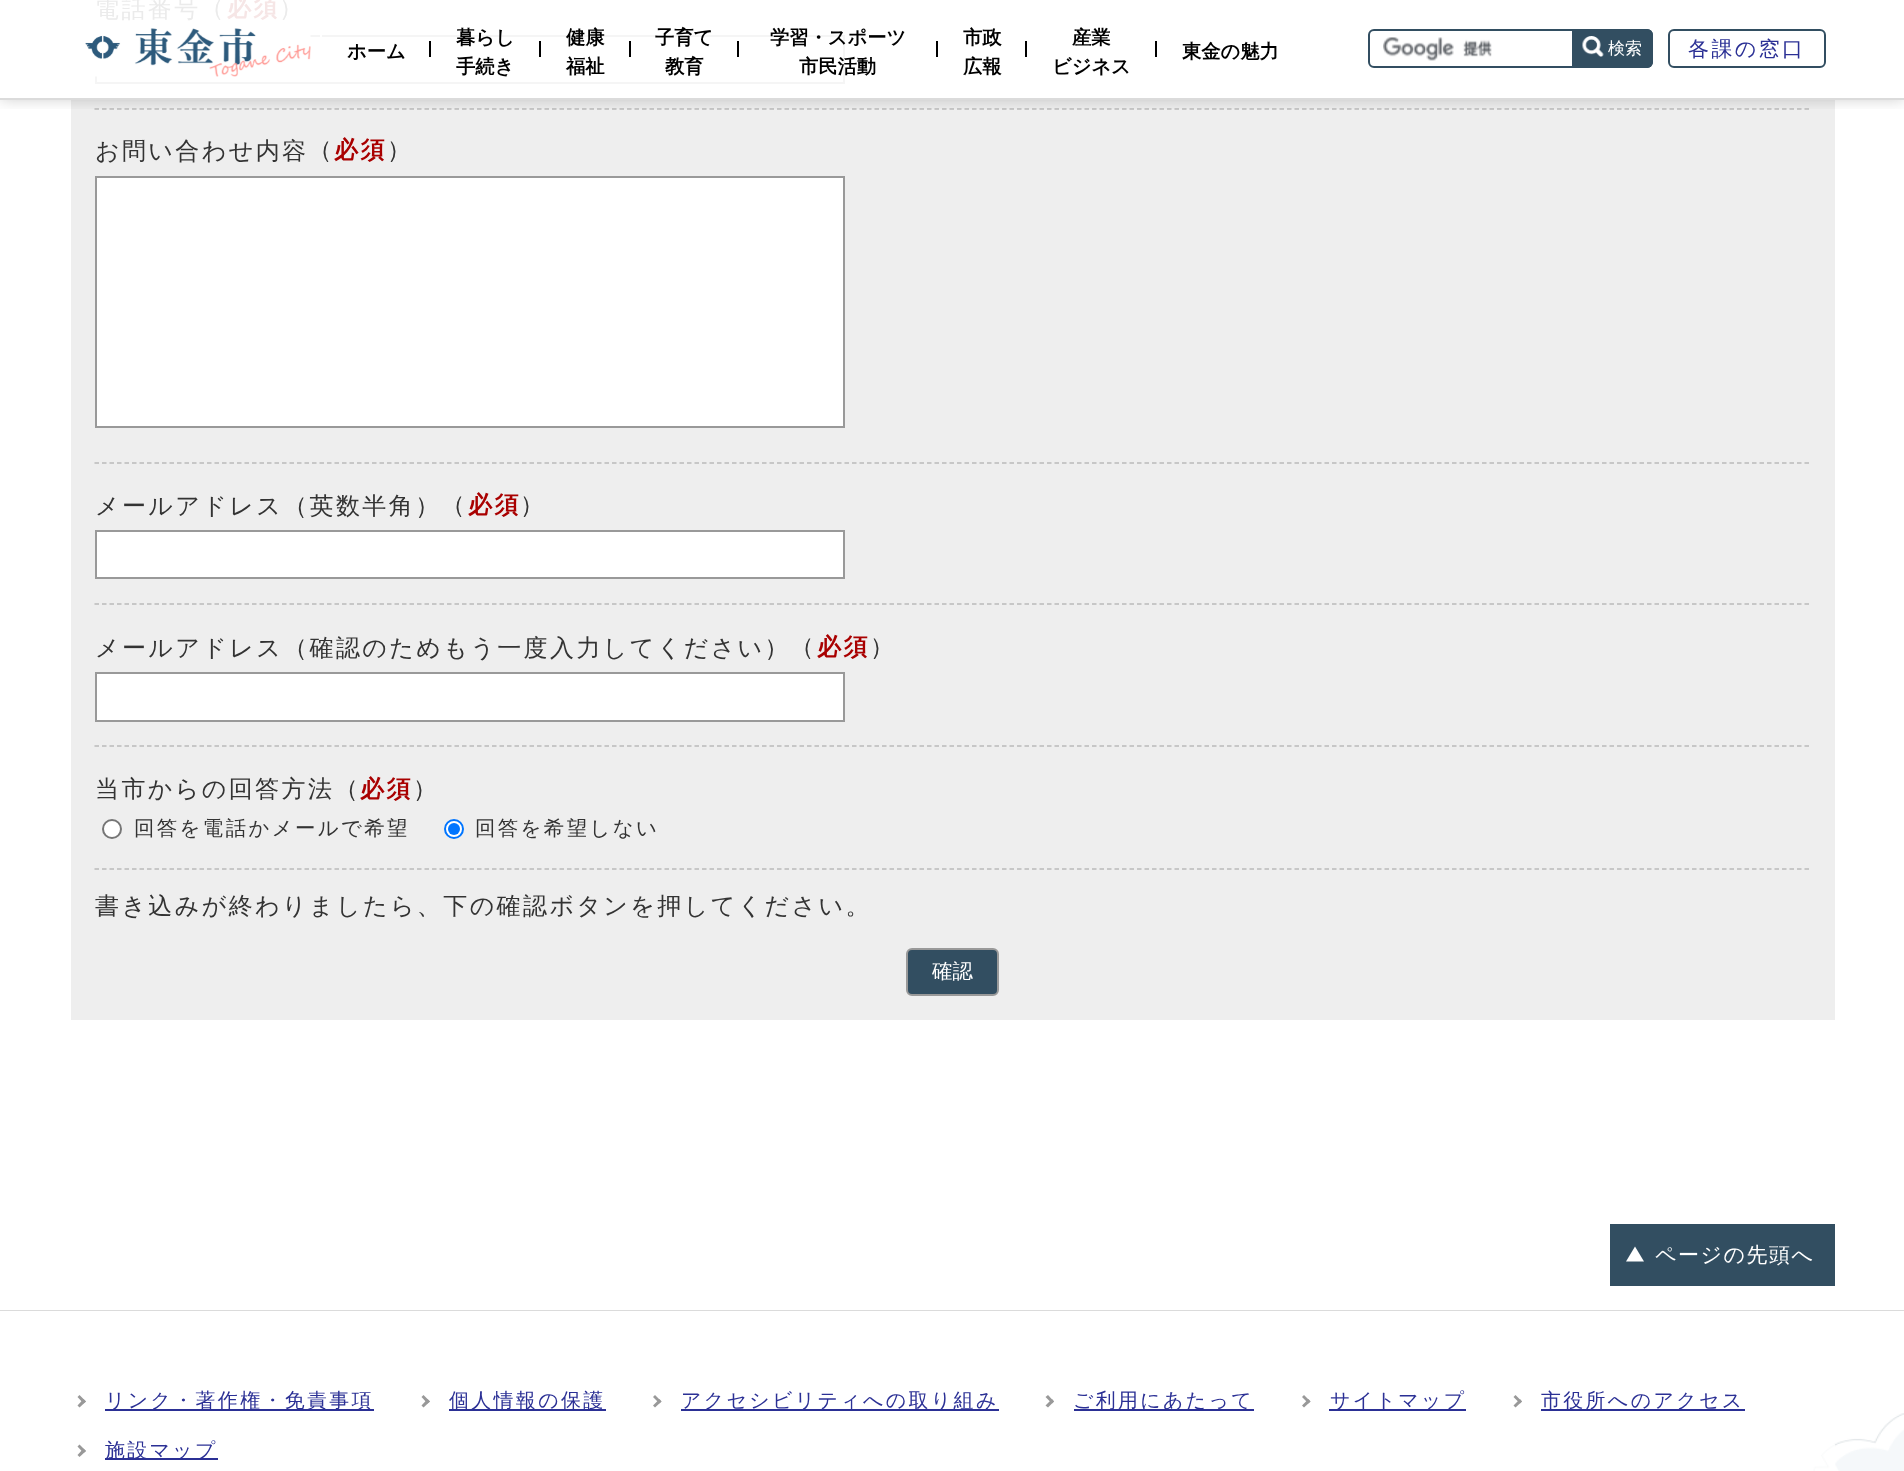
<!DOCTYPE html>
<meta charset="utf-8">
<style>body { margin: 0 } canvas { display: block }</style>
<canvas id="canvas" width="1904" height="1471"></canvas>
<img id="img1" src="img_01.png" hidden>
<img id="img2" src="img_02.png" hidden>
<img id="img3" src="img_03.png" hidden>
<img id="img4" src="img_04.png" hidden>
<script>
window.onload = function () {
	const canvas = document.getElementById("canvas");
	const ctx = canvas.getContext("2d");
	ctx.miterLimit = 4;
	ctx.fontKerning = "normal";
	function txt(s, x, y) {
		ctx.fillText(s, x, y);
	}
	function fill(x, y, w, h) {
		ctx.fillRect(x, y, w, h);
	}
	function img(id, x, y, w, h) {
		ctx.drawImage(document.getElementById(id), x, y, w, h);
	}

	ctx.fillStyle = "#FFFFFF";
	fill(0, 0, 1904, 1471);
	ctx.fillStyle = "#EEEEEE";
	fill(71, 100, 1764, 920);
	ctx.beginPath();
	ctx.moveTo(94.5, 109);
	ctx.lineTo(1810.5, 109);
	ctx.strokeStyle = "#BBBBBB";
	ctx.lineWidth = 1.5;
	ctx.setLineDash([4.5, 3]);
	ctx.stroke();
	ctx.strokeStyle = "#F5F5F5";
	ctx.lineWidth = 2;
	ctx.setLineDash([]);
	ctx.strokeRect(96, 36, 748, 47);
	ctx.beginPath();
	ctx.moveTo(94.5, 463);
	ctx.lineTo(1810.5, 463);
	ctx.strokeStyle = "#BBBBBB";
	ctx.lineWidth = 1.5;
	ctx.setLineDash([4.5, 3]);
	ctx.stroke();
	ctx.fillStyle = "#FFFFFF";
	ctx.beginPath();
	ctx.rect(96, 177, 748, 250);
	ctx.fill();
	ctx.strokeStyle = "#999999";
	ctx.lineWidth = 2;
	ctx.setLineDash([]);
	ctx.stroke();
	ctx.beginPath();
	ctx.moveTo(94.5, 604);
	ctx.lineTo(1810.5, 604);
	ctx.strokeStyle = "#BBBBBB";
	ctx.lineWidth = 1.5;
	ctx.setLineDash([4.5, 3]);
	ctx.stroke();
	ctx.beginPath();
	ctx.rect(96, 531, 748, 47);
	ctx.fill();
	ctx.strokeStyle = "#999999";
	ctx.lineWidth = 2;
	ctx.setLineDash([]);
	ctx.stroke();
	ctx.beginPath();
	ctx.moveTo(94.5, 746);
	ctx.lineTo(1810.5, 746);
	ctx.strokeStyle = "#BBBBBB";
	ctx.lineWidth = 1.5;
	ctx.setLineDash([4.5, 3]);
	ctx.stroke();
	ctx.beginPath();
	ctx.rect(96, 673, 748, 48);
	ctx.fill();
	ctx.strokeStyle = "#999999";
	ctx.lineWidth = 2;
	ctx.setLineDash([]);
	ctx.stroke();
	ctx.beginPath();
	ctx.moveTo(94.5, 869);
	ctx.lineTo(1810.5, 869);
	ctx.strokeStyle = "#BBBBBB";
	ctx.lineWidth = 1.5;
	ctx.setLineDash([4.5, 3]);
	ctx.stroke();
	ctx.beginPath();
	ctx.arc(112, 829, 9, 0, Math.PI * 2);
	ctx.fill();
	ctx.strokeStyle = "#767676";
	ctx.lineWidth = 2;
	ctx.setLineDash([]);
	ctx.stroke();
	ctx.beginPath();
	ctx.arc(454, 829, 9, 0, Math.PI * 2);
	ctx.fill();
	ctx.strokeStyle = "#0075FF";
	ctx.stroke();
	ctx.fillStyle = "#0075FF";
	ctx.beginPath();
	ctx.arc(454, 829, 6, 0, Math.PI * 2);
	ctx.fill();
	ctx.fillStyle = "#324E61";
	ctx.beginPath();
	ctx.roundRect(907, 949, 91, 46, 5);
	ctx.fill();
	ctx.strokeStyle = "#999999";
	ctx.stroke();
	fill(1610, 1224, 225, 62);
	ctx.fillStyle = "#FFFFFF";
	ctx.beginPath();
	ctx.moveTo(1644, 1261.5);
	ctx.lineTo(1626, 1261.5);
	ctx.lineTo(1635, 1246.5);
	ctx.closePath();
	ctx.fill();
	ctx.fillStyle = "#DBDBDB";
	fill(0, 1310, 1904, 1);
	img("img1", 1813, 1413, 91, 58);
	ctx.fillStyle = "rgba(255, 255, 255, 0.8)";
	fill(1813, 1444, 22, 27);
	ctx.fillStyle = "#999999";
	ctx.beginPath();
	ctx.moveTo(77.5, 1397);
	ctx.lineTo(79.5, 1395);
	ctx.lineTo(86, 1401.5);
	ctx.lineTo(83.5, 1403.5);
	ctx.closePath();
	ctx.fill();
	ctx.beginPath();
	ctx.moveTo(77.5, 1405.5);
	ctx.lineTo(83.5, 1399);
	ctx.lineTo(86, 1401.5);
	ctx.lineTo(79.5, 1407.5);
	ctx.closePath();
	ctx.fill();
	ctx.fillStyle = "#2B3095";
	fill(105, 1409, 269, 2);
	ctx.fillStyle = "#999999";
	ctx.beginPath();
	ctx.moveTo(421.5, 1397);
	ctx.lineTo(423.5, 1395);
	ctx.lineTo(430, 1401.5);
	ctx.lineTo(427.5, 1403.5);
	ctx.closePath();
	ctx.fill();
	ctx.beginPath();
	ctx.moveTo(421.5, 1405.5);
	ctx.lineTo(427.5, 1399);
	ctx.lineTo(430, 1401.5);
	ctx.lineTo(423.5, 1407.5);
	ctx.closePath();
	ctx.fill();
	ctx.fillStyle = "#2B3095";
	fill(449, 1409, 157, 2);
	ctx.fillStyle = "#999999";
	ctx.beginPath();
	ctx.moveTo(653, 1397);
	ctx.lineTo(655, 1395);
	ctx.lineTo(661.5, 1401.5);
	ctx.lineTo(659.5, 1403.5);
	ctx.closePath();
	ctx.fill();
	ctx.beginPath();
	ctx.moveTo(653, 1405.5);
	ctx.lineTo(659.5, 1399);
	ctx.lineTo(661.5, 1401.5);
	ctx.lineTo(655, 1407.5);
	ctx.closePath();
	ctx.fill();
	ctx.fillStyle = "#2B3095";
	fill(681, 1409, 318, 2);
	ctx.fillStyle = "#999999";
	ctx.beginPath();
	ctx.moveTo(1045.5, 1397);
	ctx.lineTo(1048, 1395);
	ctx.lineTo(1054, 1401.5);
	ctx.lineTo(1052, 1403.5);
	ctx.closePath();
	ctx.fill();
	ctx.beginPath();
	ctx.moveTo(1045.5, 1405.5);
	ctx.lineTo(1052, 1399);
	ctx.lineTo(1054, 1401.5);
	ctx.lineTo(1048, 1407.5);
	ctx.closePath();
	ctx.fill();
	ctx.fillStyle = "#2B3095";
	fill(1074, 1409, 180, 2);
	ctx.fillStyle = "#999999";
	ctx.beginPath();
	ctx.moveTo(1302, 1397);
	ctx.lineTo(1304, 1395);
	ctx.lineTo(1310.5, 1401.5);
	ctx.lineTo(1308.5, 1403.5);
	ctx.closePath();
	ctx.fill();
	ctx.beginPath();
	ctx.moveTo(1302, 1405.5);
	ctx.lineTo(1308.5, 1399);
	ctx.lineTo(1310.5, 1401.5);
	ctx.lineTo(1304, 1407.5);
	ctx.closePath();
	ctx.fill();
	ctx.fillStyle = "#2B3095";
	fill(1329, 1409, 137, 2);
	ctx.fillStyle = "#999999";
	ctx.beginPath();
	ctx.moveTo(1513.5, 1397);
	ctx.lineTo(1515.5, 1395);
	ctx.lineTo(1522, 1401.5);
	ctx.lineTo(1520, 1403.5);
	ctx.closePath();
	ctx.fill();
	ctx.beginPath();
	ctx.moveTo(1513.5, 1405.5);
	ctx.lineTo(1520, 1399);
	ctx.lineTo(1522, 1401.5);
	ctx.lineTo(1515.5, 1407.5);
	ctx.closePath();
	ctx.fill();
	ctx.fillStyle = "#2B3095";
	fill(1541, 1409, 204, 2);
	ctx.fillStyle = "#999999";
	ctx.beginPath();
	ctx.moveTo(77.5, 1446.5);
	ctx.lineTo(79.5, 1444.5);
	ctx.lineTo(86, 1451);
	ctx.lineTo(83.5, 1453);
	ctx.closePath();
	ctx.fill();
	ctx.beginPath();
	ctx.moveTo(77.5, 1455);
	ctx.lineTo(83.5, 1448.5);
	ctx.lineTo(86, 1451);
	ctx.lineTo(79.5, 1457);
	ctx.closePath();
	ctx.fill();
	ctx.fillStyle = "#2B3095";
	fill(105, 1458, 113, 2);
	ctx.save();
	ctx.beginPath();
	ctx.rect(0, 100, 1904, 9);
	ctx.clip();
	ctx.fillStyle = "rgba(0, 0, 0, 0.2)";
	ctx.filter = "blur(7.5px)";
	ctx.beginPath();
	ctx.rect(0, 0, 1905, 99);
	ctx.fill();
	ctx.filter = "none";
	ctx.restore();
	ctx.fillStyle = "#DBDBDB";
	fill(0, 98, 1904, 2);
	img("img2", 85, 28, 226, 49);
	ctx.fillStyle = "#FFFFFF";
	fill(320, 35, 2, 2);
	ctx.fillStyle = "#000000";
	fill(429, 41, 2, 16);
	fill(539, 41, 2, 16);
	fill(629, 41, 2, 16);
	fill(737, 41, 2, 16);
	fill(936, 41, 2, 16);
	fill(1025, 41, 2, 16);
	fill(1155, 41, 2, 16);
	img("img3", 1383, 37, 109, 24);
	ctx.beginPath();
	ctx.roundRect(1369, 30, 204, 37, [5, 0, 0, 5]);
	ctx.strokeStyle = "#324E61";
	ctx.stroke();
	ctx.fillStyle = "#324E61";
	ctx.beginPath();
	ctx.roundRect(1574, 29, 79, 39, [0, 6, 6, 0]);
	ctx.fill();
	img("img4", 1582, 36, 22, 21);
	ctx.beginPath();
	ctx.roundRect(1575, 30, 77, 37, [0, 5, 5, 0]);
	ctx.stroke();
	ctx.beginPath();
	ctx.roundRect(1669, 30, 156, 37, 5);
	ctx.stroke();
	ctx.letterSpacing = "2.4px";
	ctx.font = "500 24px WenQuanYi Zen Hei";
	ctx.fillStyle = "#EBEBEB";
	txt("電話番号", 95, 17);
	txt("（", 200, 16);
	ctx.font = "bold 24px WenQuanYi Zen Hei";
	ctx.fillStyle = "#F6E6E6";
	txt("必須", 227, 16);
	ctx.font = "500 24px WenQuanYi Zen Hei";
	ctx.fillStyle = "#EBEBEB";
	txt("）", 279, 16);
	ctx.fillStyle = "#333333";
	txt("お問い合わせ内容", 95, 159);
	txt("（", 308, 158);
	ctx.font = "bold 24px WenQuanYi Zen Hei";
	ctx.fillStyle = "#A90000";
	txt("必須", 334, 158);
	ctx.font = "500 24px WenQuanYi Zen Hei";
	ctx.fillStyle = "#333333";
	txt("）", 387, 158);
	txt("メールアドレス（英数半角）", 95, 514);
	txt("（", 441, 513);
	ctx.font = "bold 24px WenQuanYi Zen Hei";
	ctx.fillStyle = "#A90000";
	txt("必須", 468, 513);
	ctx.font = "500 24px WenQuanYi Zen Hei";
	ctx.fillStyle = "#333333";
	txt("）", 520, 513);
	txt("メールアドレス（確認のためもう一度入力してください）", 95, 656);
	txt("（", 790, 655);
	ctx.font = "bold 24px WenQuanYi Zen Hei";
	ctx.fillStyle = "#A90000";
	txt("必須", 817, 655);
	ctx.font = "500 24px WenQuanYi Zen Hei";
	ctx.fillStyle = "#333333";
	txt("）", 870, 655);
	txt("当市からの回答方法（", 95, 797);
	ctx.font = "bold 24px WenQuanYi Zen Hei";
	ctx.fillStyle = "#A90000";
	txt("必須", 360, 797);
	ctx.font = "500 24px WenQuanYi Zen Hei";
	ctx.fillStyle = "#333333";
	txt("）", 413, 797);
	ctx.font = "500 20.4px WenQuanYi Zen Hei";
	txt("回答を電話かメールで希望", 134, 835);
	txt("回答を希望しない", 475, 835);
	ctx.font = "500 24px WenQuanYi Zen Hei";
	txt("書き込みが終わりましたら、下の確認ボタンを押してください。", 95, 914);
	ctx.letterSpacing = "0px";
	ctx.font = "500 20.4px WenQuanYi Zen Hei";
	ctx.fillStyle = "#FFFFFF";
	txt("確認", 932, 978);
	ctx.letterSpacing = "1.5px";
	ctx.font = "500 21px WenQuanYi Zen Hei";
	txt("ページの先頭へ", 1655, 1262);
	ctx.letterSpacing = "2.4px";
	ctx.font = "500 19.9px WenQuanYi Zen Hei";
	ctx.fillStyle = "#2B3095";
	txt("リンク・著作権・免責事項", 105, 1407);
	txt("個人情報の保護", 449, 1407);
	txt("アクセシビリティへの取り組み", 681, 1407);
	txt("ご利用にあたって", 1073, 1407);
	txt("サイトマップ", 1330, 1407);
	txt("市役所へのアクセス", 1541, 1407);
	txt("施設マップ", 105, 1457);
	ctx.letterSpacing = "0px";
	ctx.font = "bold 19.25px WenQuanYi Zen Hei";
	ctx.fillStyle = "#000000";
	txt("ホーム", 347, 58);
	txt("暮らし", 456, 44);
	txt("手続き", 456, 73);
	txt("健康", 566, 44);
	txt("福祉", 566, 73);
	txt("子育て", 655, 44);
	txt("教育", 665, 73);
	txt("学習・スポーツ", 770, 44);
	txt("市民活動", 799, 73);
	txt("市政", 963, 44);
	txt("広報", 963, 73);
	txt("産業", 1072, 44);
	txt("ビジネス", 1052, 73);
	txt("東金の魅力", 1182, 58);
	ctx.font = "500 17px WenQuanYi Zen Hei";
	ctx.fillStyle = "#FFFFFF";
	txt("検索", 1608, 54);
	ctx.letterSpacing = "2.4px";
	ctx.font = "500 21px WenQuanYi Zen Hei";
	ctx.fillStyle = "#2B3095";
	txt("各課の窓口", 1688, 56);
};
</script>
